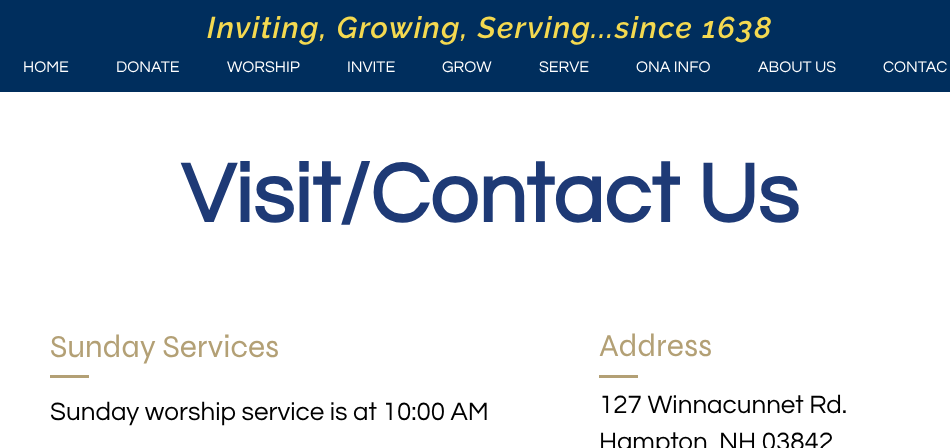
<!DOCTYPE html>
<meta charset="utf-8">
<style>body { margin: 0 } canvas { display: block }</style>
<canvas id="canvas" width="950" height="448"></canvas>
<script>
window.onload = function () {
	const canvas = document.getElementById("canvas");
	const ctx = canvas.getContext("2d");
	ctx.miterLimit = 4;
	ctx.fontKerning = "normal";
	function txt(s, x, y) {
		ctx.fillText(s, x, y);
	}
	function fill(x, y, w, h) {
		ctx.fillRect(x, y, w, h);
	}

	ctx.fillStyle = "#FFFFFF";
	fill(0, 0, 950, 448);
	ctx.fillStyle = "#002E5D";
	fill(0, 0, 950, 92);
	ctx.fillStyle = "#B3A075";
	fill(50, 375, 39, 3);
	fill(599, 375, 39, 3);
	ctx.letterSpacing = "1.5px";
	ctx.font = "italic 600 30px Raleway";
	ctx.fillStyle = "#F4D950";
	txt("Inviting, Growing, Serving...since 1638", 207, 38);
	ctx.letterSpacing = "0px";
	ctx.font = "16px Questrial";
	ctx.fillStyle = "#FFFFFF";
	txt("HOME", 23, 72);
	txt("DONATE", 116, 72);
	txt("WORSHIP", 227, 72);
	txt("INVITE", 347, 72);
	txt("GROW", 442, 72);
	txt("SERVE", 539, 72);
	txt("ONA INFO", 636, 72);
	txt("ABOUT US", 758, 72);
	txt("CONTAC", 883, 72);
	ctx.font = "bold 86px Questrial";
	ctx.fillStyle = "#1E3A76";
	txt("Visit/Contact Us", 181, 222);
	ctx.font = "32px Syne";
	ctx.fillStyle = "#B3A075";
	txt("Sunday Services", 50, 357);
	ctx.font = "26px Questrial";
	ctx.fillStyle = "#000000";
	txt("Sunday worship service is at 10:00 AM", 50, 420);
	ctx.font = "32px Syne";
	ctx.fillStyle = "#B3A075";
	txt("Address", 599, 356);
	ctx.font = "26px Questrial";
	ctx.fillStyle = "#000000";
	txt("127 Winnacunnet Rd.", 599, 413);
	txt("Hampton, NH 03842", 599, 450);
};
</script>
